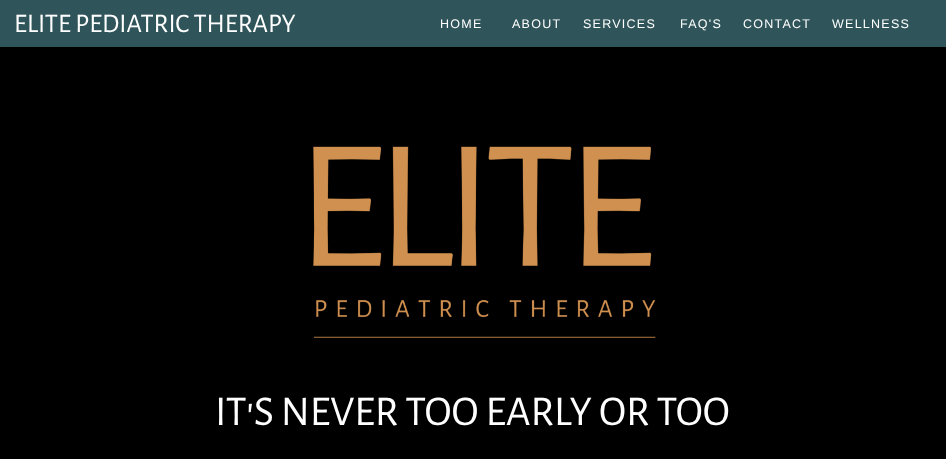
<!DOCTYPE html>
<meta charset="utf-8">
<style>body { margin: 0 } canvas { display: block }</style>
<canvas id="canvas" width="946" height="459"></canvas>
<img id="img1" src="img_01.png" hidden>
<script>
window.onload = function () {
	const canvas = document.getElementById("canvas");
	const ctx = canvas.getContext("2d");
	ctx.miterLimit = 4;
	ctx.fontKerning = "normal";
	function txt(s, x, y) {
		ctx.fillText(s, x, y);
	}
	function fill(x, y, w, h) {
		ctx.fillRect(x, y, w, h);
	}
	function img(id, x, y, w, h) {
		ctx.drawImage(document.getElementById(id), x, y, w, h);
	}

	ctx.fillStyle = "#000000";
	fill(0, 0, 946, 459);
	ctx.fillStyle = "#2F555A";
	fill(0, 0, 946, 47);
	img("img1", 313, 146, 343, 192);
	ctx.font = "26.75px Alegreya Sans SC";
	ctx.fillStyle = "#FFFFFF";
	txt("ELITE PEDIATRIC THERAPY", 14, 32);
	ctx.letterSpacing = "1.25px";
	ctx.font = "12.5px Liberation Sans";
	txt("HOME", 440, 28);
	txt("ABOUT", 512, 28);
	txt("SERVICES", 583, 28);
	txt("FAQ'S", 680, 28);
	txt("CONTACT", 743, 28);
	txt("WELLNESS", 832, 28);
	ctx.letterSpacing = "0px";
	ctx.font = "42.5px Alegreya Sans SC";
	txt("IT'S NEVER TOO EARLY OR TOO", 215, 425);
};
</script>
